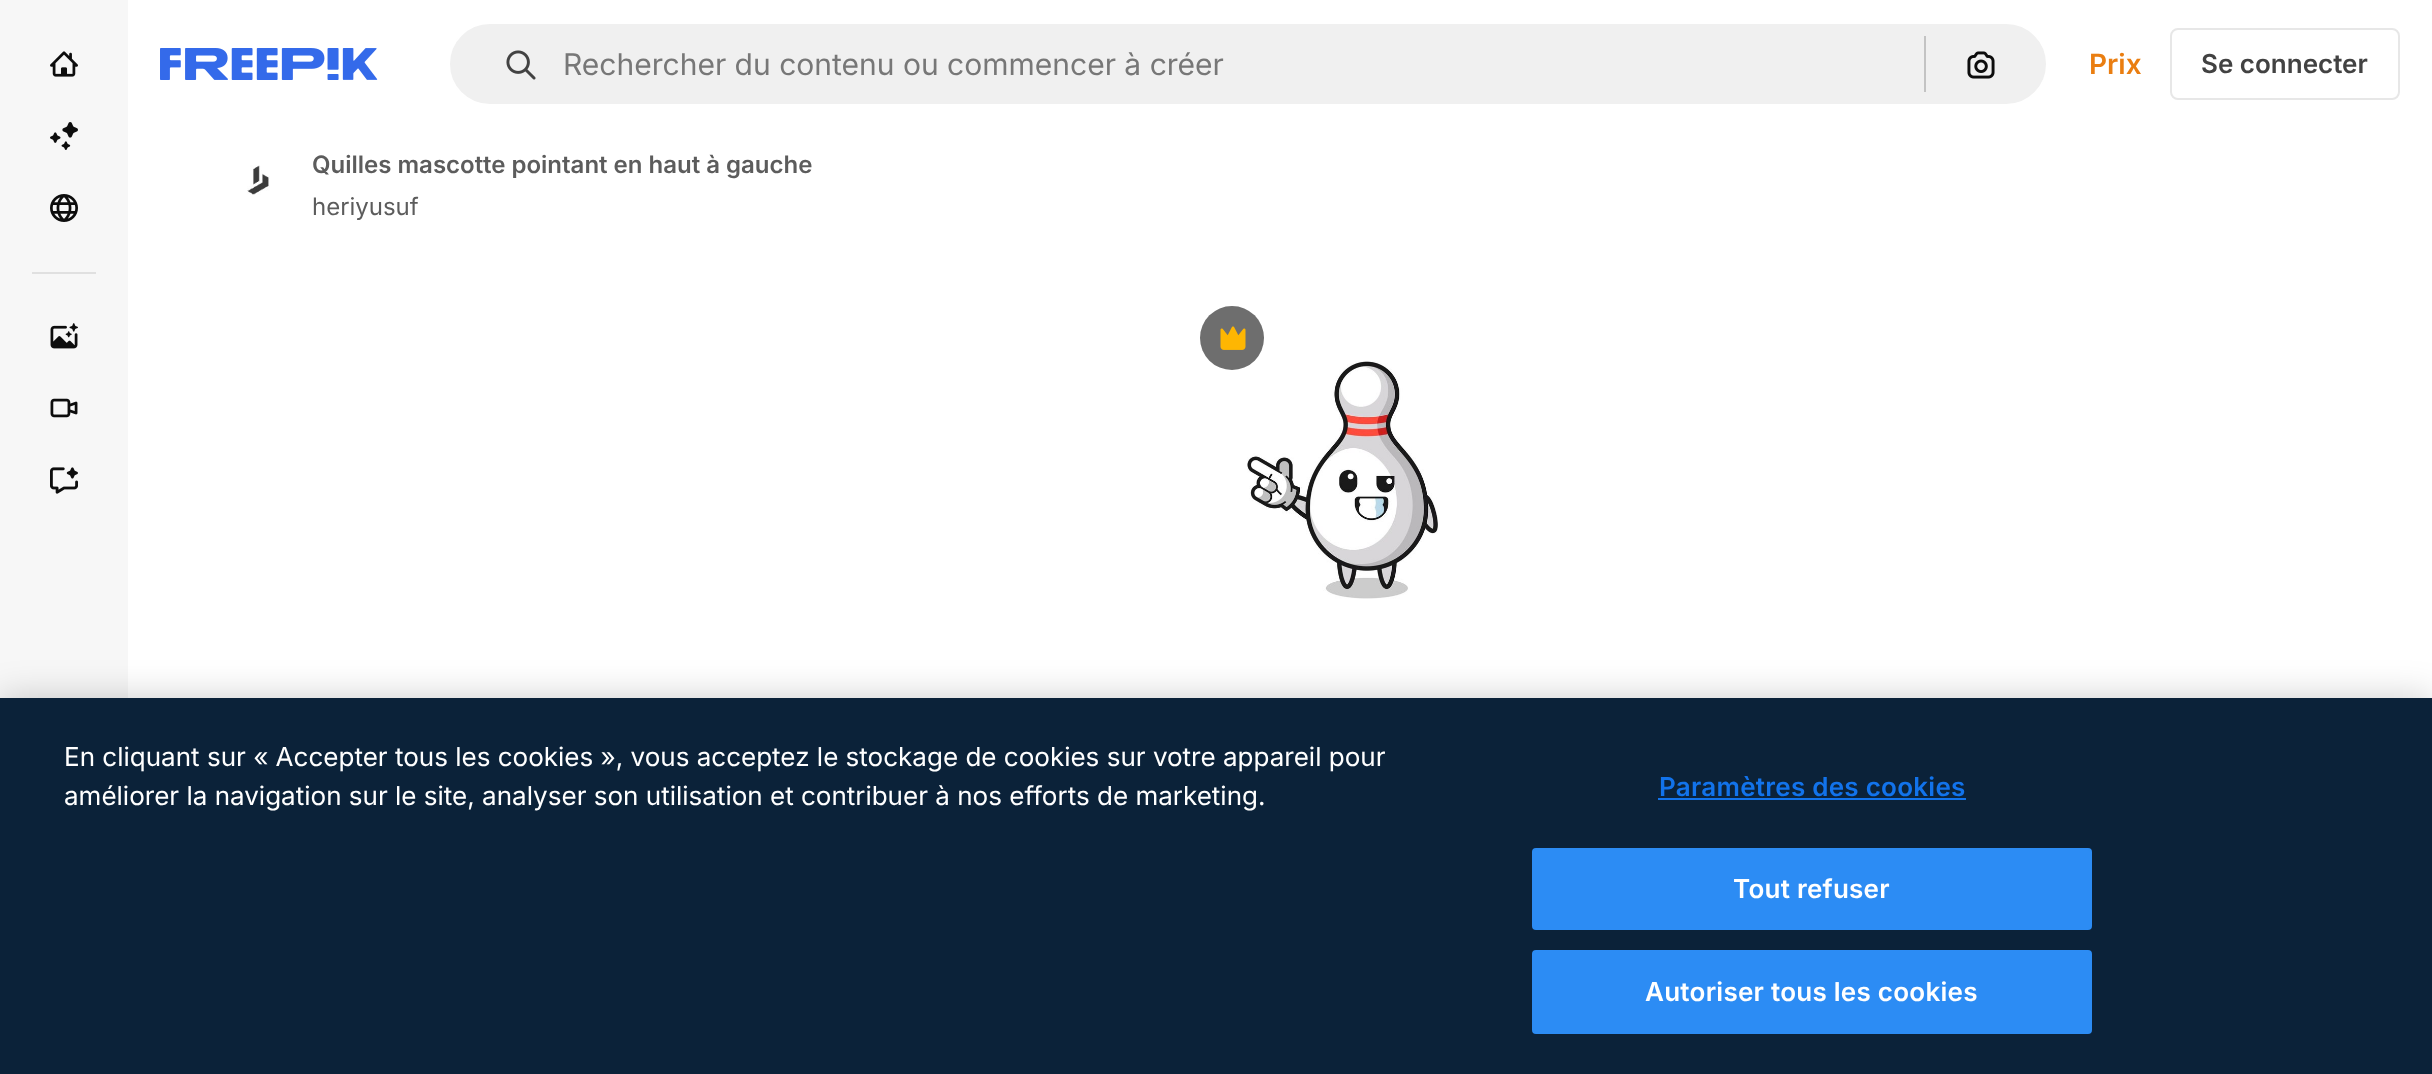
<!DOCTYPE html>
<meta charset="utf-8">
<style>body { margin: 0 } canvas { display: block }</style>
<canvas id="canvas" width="2432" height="1074"></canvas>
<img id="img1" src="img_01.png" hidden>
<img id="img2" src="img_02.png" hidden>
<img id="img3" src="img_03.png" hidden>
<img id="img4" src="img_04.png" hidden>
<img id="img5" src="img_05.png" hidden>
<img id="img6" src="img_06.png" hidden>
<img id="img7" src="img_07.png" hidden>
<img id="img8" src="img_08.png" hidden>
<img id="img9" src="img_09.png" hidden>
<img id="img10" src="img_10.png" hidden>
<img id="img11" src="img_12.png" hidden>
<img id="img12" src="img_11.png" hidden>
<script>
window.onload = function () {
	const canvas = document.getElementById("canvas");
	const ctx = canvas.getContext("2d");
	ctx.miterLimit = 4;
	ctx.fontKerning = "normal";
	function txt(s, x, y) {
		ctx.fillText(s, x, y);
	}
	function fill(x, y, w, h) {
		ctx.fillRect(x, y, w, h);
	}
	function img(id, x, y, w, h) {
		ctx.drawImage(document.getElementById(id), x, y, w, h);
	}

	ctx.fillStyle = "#FFFFFF";
	fill(0, 0, 2432, 1074);
	ctx.fillStyle = "#F7F7F7";
	fill(0, 0, 128, 698);
	img("img1", 50, 51, 28, 26);
	img("img2", 50, 122, 28, 28);
	img("img3", 50, 194, 28, 28);
	ctx.fillStyle = "#E0E0E0";
	fill(32, 272, 64, 2);
	img("img4", 50, 323, 28, 26);
	img("img5", 50, 398, 28, 20);
	img("img6", 50, 467, 28, 27);
	img("img7", 160, 48, 218, 32);
	ctx.fillStyle = "#F0F0F0";
	ctx.beginPath();
	ctx.roundRect(449, 23, 1598, 82, 41);
	ctx.fill();
	ctx.strokeStyle = "#FFFFFF";
	ctx.lineWidth = 2;
	ctx.stroke();
	img("img8", 506, 50, 30, 30);
	ctx.fillStyle = "#C3C3C3";
	fill(1924, 36, 2, 56);
	img("img9", 1967, 51, 28, 28);
	ctx.beginPath();
	ctx.roundRect(2171, 29, 228, 70, 7);
	ctx.strokeStyle = "#E7E7E7";
	ctx.stroke();
	img("img10", 247, 165, 23, 30);
	img("img11", 1247, 361, 191, 238);
	ctx.fillStyle = "#6E6E6E";
	ctx.beginPath();
	ctx.arc(1232, 338, 32, 0, Math.PI * 2);
	ctx.fill();
	img("img12", 1220, 326, 26, 24);
	ctx.fillStyle = "rgba(0, 0, 0, 0.2)";
	ctx.filter = "blur(18px)";
	ctx.beginPath();
	ctx.rect(0, 698, 2432, 376);
	ctx.fill();
	ctx.filter = "none";
	ctx.fillStyle = "#0B2239";
	fill(0, 698, 2432, 376);
	ctx.fillStyle = "#1273EB";
	fill(1658, 798, 308, 2);
	ctx.fillStyle = "#2C8CF4";
	ctx.beginPath();
	ctx.roundRect(1533, 849, 558, 80, 3);
	ctx.fill();
	ctx.strokeStyle = "#2C8CF4";
	ctx.stroke();
	ctx.beginPath();
	ctx.roundRect(1533, 951, 558, 82, 3);
	ctx.fill();
	ctx.stroke();
	ctx.font = "30px Inter";
	ctx.fillStyle = "#777777";
	txt("Rechercher du contenu ou commencer à créer", 563, 75);
	ctx.font = "600 28px Inter";
	ctx.fillStyle = "#EA7E11";
	txt("Prix", 2089, 74);
	ctx.font = "600 26px Inter";
	ctx.fillStyle = "#424242";
	txt("Se connecter", 2201, 73);
	ctx.font = "600 24px Inter";
	ctx.fillStyle = "#5C5C5C";
	txt("Quilles mascotte pointant en haut à gauche", 312, 173);
	ctx.font = "24px Inter";
	txt("heriyusuf", 312, 215);
	ctx.font = "26.02px Inter";
	ctx.fillStyle = "#FFFFFF";
	txt("En cliquant sur « Accepter tous les cookies », vous acceptez le stockage de cookies sur votre appareil pour", 64, 766);
	txt("améliorer la navigation sur le site, analyser son utilisation et contribuer à nos efforts de marketing.", 64, 805);
	ctx.letterSpacing = "0.25px";
	ctx.font = "600 26.02px Inter";
	ctx.fillStyle = "#1273EB";
	txt("Paramètres des cookies", 1659, 796);
	ctx.fillStyle = "#FFFFFF";
	txt("Tout refuser", 1733, 898);
	txt("Autoriser tous les cookies", 1645, 1001);
};
</script>
